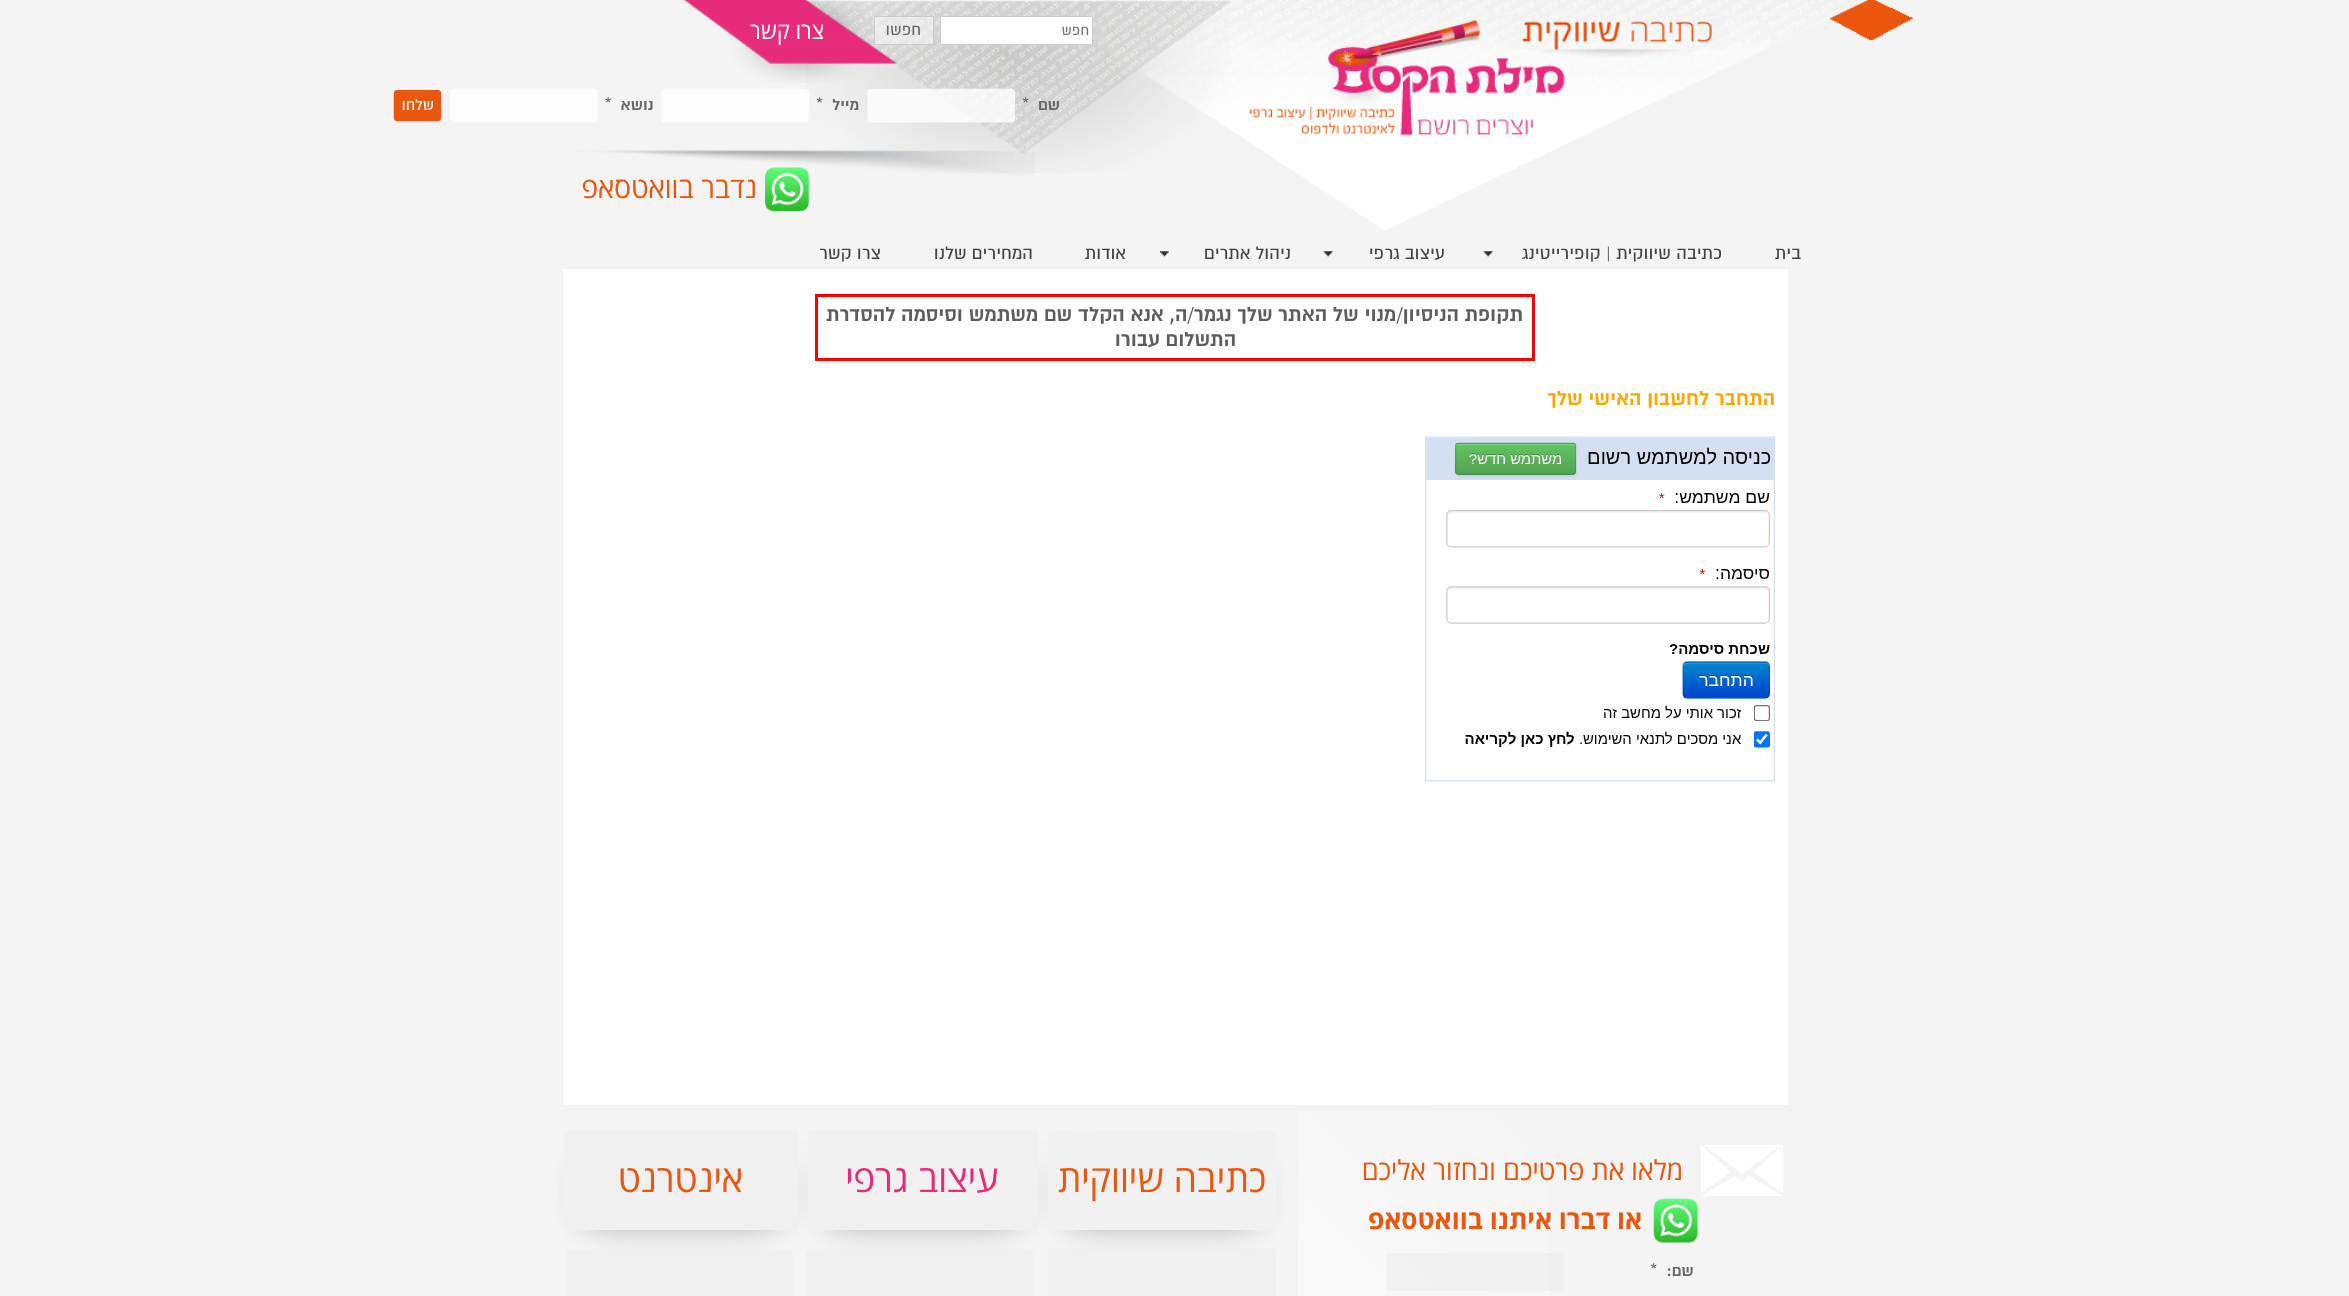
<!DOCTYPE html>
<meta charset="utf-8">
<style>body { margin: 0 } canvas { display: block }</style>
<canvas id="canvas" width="2349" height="1296"></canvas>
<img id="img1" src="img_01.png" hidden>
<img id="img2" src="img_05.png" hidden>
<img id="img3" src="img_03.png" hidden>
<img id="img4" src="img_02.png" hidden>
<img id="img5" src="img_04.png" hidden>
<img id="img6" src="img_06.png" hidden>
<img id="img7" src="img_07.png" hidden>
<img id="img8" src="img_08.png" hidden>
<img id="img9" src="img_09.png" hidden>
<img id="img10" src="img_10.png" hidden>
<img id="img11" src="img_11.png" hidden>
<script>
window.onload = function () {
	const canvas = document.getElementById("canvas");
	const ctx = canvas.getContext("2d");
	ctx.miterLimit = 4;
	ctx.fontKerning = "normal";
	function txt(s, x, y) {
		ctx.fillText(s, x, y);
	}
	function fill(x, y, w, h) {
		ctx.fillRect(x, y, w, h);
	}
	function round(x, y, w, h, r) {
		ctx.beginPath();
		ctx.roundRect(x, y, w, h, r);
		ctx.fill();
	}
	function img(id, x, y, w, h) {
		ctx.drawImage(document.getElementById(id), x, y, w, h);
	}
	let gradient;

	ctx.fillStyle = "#F4F4F4";
	fill(0, 0, 2349, 1296);
	img("img1", 1032, 0, 881, 231);
	img("img2", 574, 150, 461, 26);
	img("img3", 806, 1, 425, 172);
	img("img4", 683, 0, 215, 83);
	ctx.fillStyle = "#FFFFFF";
	ctx.beginPath();
	ctx.rect(940.5, 16.5, 152, 28);
	ctx.fill();
	ctx.strokeStyle = "#CCCCCC";
	ctx.stroke();
	ctx.fillStyle = "rgba(255, 255, 255, 0.46)";
	ctx.beginPath();
	ctx.rect(874.5, 16.5, 59, 28);
	ctx.fill();
	ctx.stroke();
	img("img5", 393, 88, 666, 35);
	img("img6", 765, 167, 44, 45);
	img("img7", 1483, 251, 10, 6);
	img("img7", 1323, 251, 10, 6);
	img("img8", 1160, 251, 9, 6);
	ctx.fillStyle = "#FFFFFF";
	fill(563, 269, 1225, 836);
	ctx.strokeStyle = "#FF0000";
	ctx.lineWidth = 3;
	ctx.strokeRect(816.5, 295.5, 717, 64);
	img("img9", 1425, 436, 350, 346);
	ctx.beginPath();
	ctx.moveTo(1753, 1172);
	ctx.lineTo(1783, 1193);
	ctx.lineTo(1783, 1145);
	ctx.closePath();
	ctx.moveTo(1701, 1145);
	ctx.lineTo(1701, 1193);
	ctx.lineTo(1731, 1172);
	ctx.closePath();
	ctx.moveTo(1742, 1182);
	ctx.lineTo(1735, 1176);
	ctx.lineTo(1701, 1196);
	ctx.lineTo(1783, 1196);
	ctx.lineTo(1749, 1176);
	ctx.closePath();
	ctx.moveTo(1781, 1145);
	ctx.lineTo(1704, 1145);
	ctx.lineTo(1742, 1174);
	ctx.closePath();
	ctx.fill();
	gradient = ctx.createLinearGradient(1283, 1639, 1795, 1126);
	gradient.addColorStop(0, "#FFFFFF");
	gradient.addColorStop(0.77, "#F4F4F4");
	ctx.fillStyle = gradient;
	fill(1298, 1111, 251, 185);
	img("img10", 1653, 1198, 45, 45);
	img("img11", 1386, 1253, 307, 38);
	ctx.save();
	ctx.beginPath();
	ctx.moveTo(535, 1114);
	ctx.lineTo(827, 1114);
	ctx.lineTo(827, 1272);
	ctx.lineTo(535, 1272);
	ctx.closePath();
	ctx.moveTo(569, 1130);
	ctx.lineTo(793, 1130);
	ctx.bezierCurveTo(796, 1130, 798, 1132, 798, 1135);
	ctx.lineTo(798, 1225);
	ctx.bezierCurveTo(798, 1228, 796, 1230, 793, 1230);
	ctx.lineTo(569, 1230);
	ctx.bezierCurveTo(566, 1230, 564, 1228, 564, 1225);
	ctx.lineTo(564, 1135);
	ctx.bezierCurveTo(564, 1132, 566, 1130, 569, 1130);
	ctx.closePath();
	ctx.clip("evenodd");
	ctx.fillStyle = "#777777";
	ctx.filter = "blur(17.5px)";
	ctx.beginPath();
	ctx.rect(589, 1168, 184, 50);
	ctx.fill();
	ctx.filter = "none";
	ctx.restore();
	ctx.fillStyle = "rgba(237, 237, 237, 0.48)";
	round(564, 1130, 234, 100, 5);
	ctx.save();
	ctx.beginPath();
	ctx.moveTo(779, 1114);
	ctx.lineTo(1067, 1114);
	ctx.lineTo(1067, 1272);
	ctx.lineTo(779, 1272);
	ctx.closePath();
	ctx.moveTo(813, 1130);
	ctx.lineTo(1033, 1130);
	ctx.bezierCurveTo(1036, 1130, 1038, 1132, 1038, 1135);
	ctx.lineTo(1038, 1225);
	ctx.bezierCurveTo(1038, 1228, 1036, 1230, 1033, 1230);
	ctx.lineTo(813, 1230);
	ctx.bezierCurveTo(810, 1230, 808, 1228, 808, 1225);
	ctx.lineTo(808, 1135);
	ctx.bezierCurveTo(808, 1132, 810, 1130, 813, 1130);
	ctx.closePath();
	ctx.clip("evenodd");
	ctx.fillStyle = "#777777";
	ctx.filter = "blur(17.5px)";
	ctx.beginPath();
	ctx.rect(833, 1168, 180, 50);
	ctx.fill();
	ctx.filter = "none";
	ctx.restore();
	round(808, 1130, 230, 100, 5);
	ctx.fillStyle = "#777777";
	ctx.filter = "blur(17.5px)";
	ctx.beginPath();
	ctx.rect(1073, 1168, 178, 50);
	ctx.fill();
	ctx.filter = "none";
	ctx.fillStyle = "#F1F1F1";
	round(1048, 1130, 228, 100, 5);
	ctx.fillStyle = "rgba(237, 237, 237, 0.48)";
	round(1048, 1248, 228, 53, 5);
	round(806, 1249, 227, 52, 5);
	round(566, 1250, 227, 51, 5);
	ctx.direction = "rtl";
	ctx.font = "16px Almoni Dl";
	ctx.fillStyle = "#757575";
	txt("חפש", 1089, 35);
	ctx.font = "18px Almoni Dl";
	ctx.fillStyle = "#666666";
	txt("חפשו", 921, 35);
	ctx.font = "22.5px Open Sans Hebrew";
	ctx.fillStyle = "#FFFFFF";
	txt("צרו קשר", 824, 39);
	ctx.font = "28.75px Open Sans Hebrew";
	ctx.fillStyle = "#EA570D";
	txt("נדבר בוואטסאפ", 757, 198);
	ctx.font = "20px Almoni Dl";
	ctx.fillStyle = "#434343";
	txt("בית", 1801, 259);
	txt("כתיבה שיווקית | קופירייטינג", 1722, 259);
	txt("עיצוב גרפי", 1445, 259);
	txt("ניהול אתרים", 1291, 259);
	txt("אודות", 1126, 259);
	txt("המחירים שלנו", 1033, 259);
	txt("צרו קשר", 881, 259);
	ctx.font = "bold 22.5px Almoni Dl";
	ctx.fillStyle = "#5D5D5D";
	txt("תקופת הניסיון/מנוי של האתר שלך נגמר/ה, אנא הקלד שם משתמש וסיסמה להסדרת", 1523, 321);
	txt("התשלום עבורו", 1236, 346);
	ctx.fillStyle = "#FFA500";
	txt("התחבר לחשבון האישי שלך", 1775, 405);
	ctx.font = "27.5px Open Sans Hebrew";
	ctx.fillStyle = "#EA570D";
	txt("מלאו את פרטיכם ונחזור אליכם", 1683, 1180);
	ctx.font = "bold 26.25px Open Sans Hebrew";
	txt("או דברו איתנו בוואטסאפ", 1642, 1229);
	ctx.font = "37.5px Open Sans Hebrew";
	txt("כתיבה שיווקית", 1266, 1192);
	ctx.fillStyle = "#E72B7B";
	txt("עיצוב גרפי", 999, 1192);
	ctx.fillStyle = "#EA570D";
	txt("אינטרנט", 743, 1192);
};
</script>
